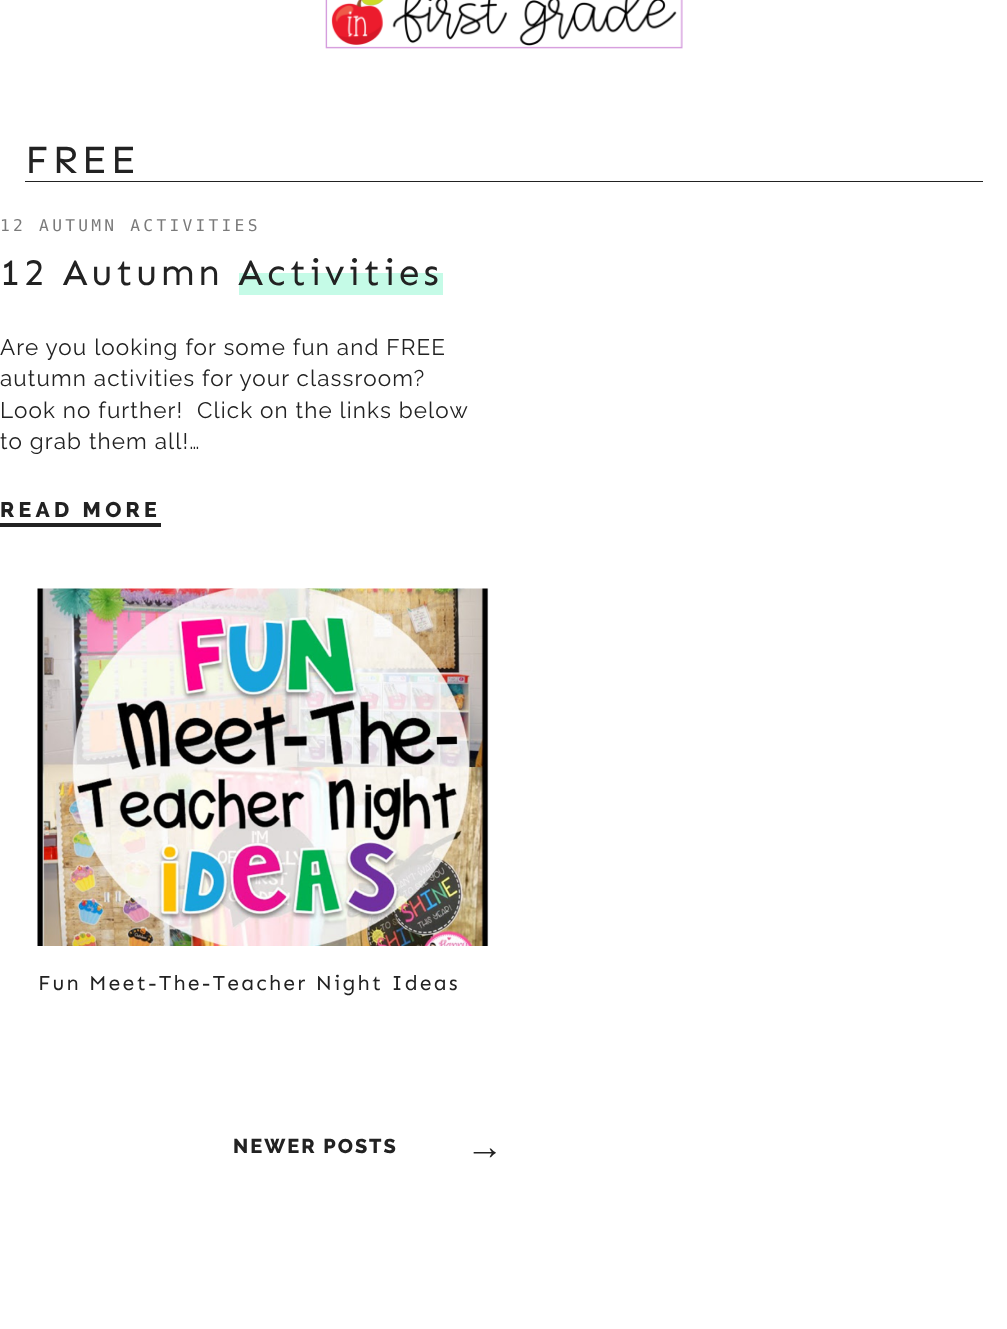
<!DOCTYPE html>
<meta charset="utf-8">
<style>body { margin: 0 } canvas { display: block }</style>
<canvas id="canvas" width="1007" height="1329"></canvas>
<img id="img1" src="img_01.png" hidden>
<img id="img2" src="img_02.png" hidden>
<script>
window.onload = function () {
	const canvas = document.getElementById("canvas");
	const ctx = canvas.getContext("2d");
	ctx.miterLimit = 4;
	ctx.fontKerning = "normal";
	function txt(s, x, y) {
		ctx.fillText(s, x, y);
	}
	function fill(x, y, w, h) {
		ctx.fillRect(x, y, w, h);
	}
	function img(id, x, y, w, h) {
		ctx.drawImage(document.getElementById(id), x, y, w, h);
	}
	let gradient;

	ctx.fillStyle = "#FFFFFF";
	fill(0, 0, 1007, 1329);
	img("img1", 325, 0, 358, 49);
	ctx.fillStyle = "#222222";
	fill(25, 181, 958, 1);
	gradient = ctx.createLinearGradient(341, 250, 341, 295);
	gradient.addColorStop(0, "#FFFFFF");
	gradient.addColorStop(0.5, "#FFFFFF");
	gradient.addColorStop(0.5, "#C5FBE7");
	ctx.fillStyle = gradient;
	fill(239, 272, 204, 23);
	ctx.fillStyle = "#222222";
	fill(0, 523, 161, 4);
	img("img2", 37, 588, 452, 358);
	ctx.letterSpacing = "4px";
	ctx.font = "40px Sen";
	txt("FREE", 25, 173);
	ctx.letterSpacing = "3.25px";
	ctx.font = "16.25px DejaVu Sans Mono";
	ctx.fillStyle = "#7A7A7A";
	txt("12 AUTUMN ACTIVITIES", 0, 231);
	ctx.letterSpacing = "3.75px";
	ctx.font = "37.5px Sen";
	ctx.fillStyle = "#222222";
	txt("12 Autumn", 0, 285);
	txt("Activities", 238, 285);
	ctx.letterSpacing = "1.1px";
	ctx.font = "22.5px Raleway";
	txt("Are you looking for some fun and FREE", 0, 355);
	txt("autumn activities for your classroom?", 0, 386);
	txt("Look no further!  Click on the links below", 0, 418);
	txt("to grab them all!…", 0, 449);
	ctx.letterSpacing = "4.25px";
	ctx.font = "800 21.25px Raleway";
	txt("READ MORE", 0, 517);
	ctx.letterSpacing = "2.1px";
	ctx.font = "21.25px Sen";
	txt("Fun Meet-The-Teacher Night Ideas", 38, 990);
	ctx.letterSpacing = "2px";
	ctx.font = "800 20px Raleway";
	txt("NEWER POSTS", 233, 1153);
	ctx.letterSpacing = "0px";
	ctx.font = "bold 37.5px Liberation Serif";
	txt("→", 466, 1159);
};
</script>
